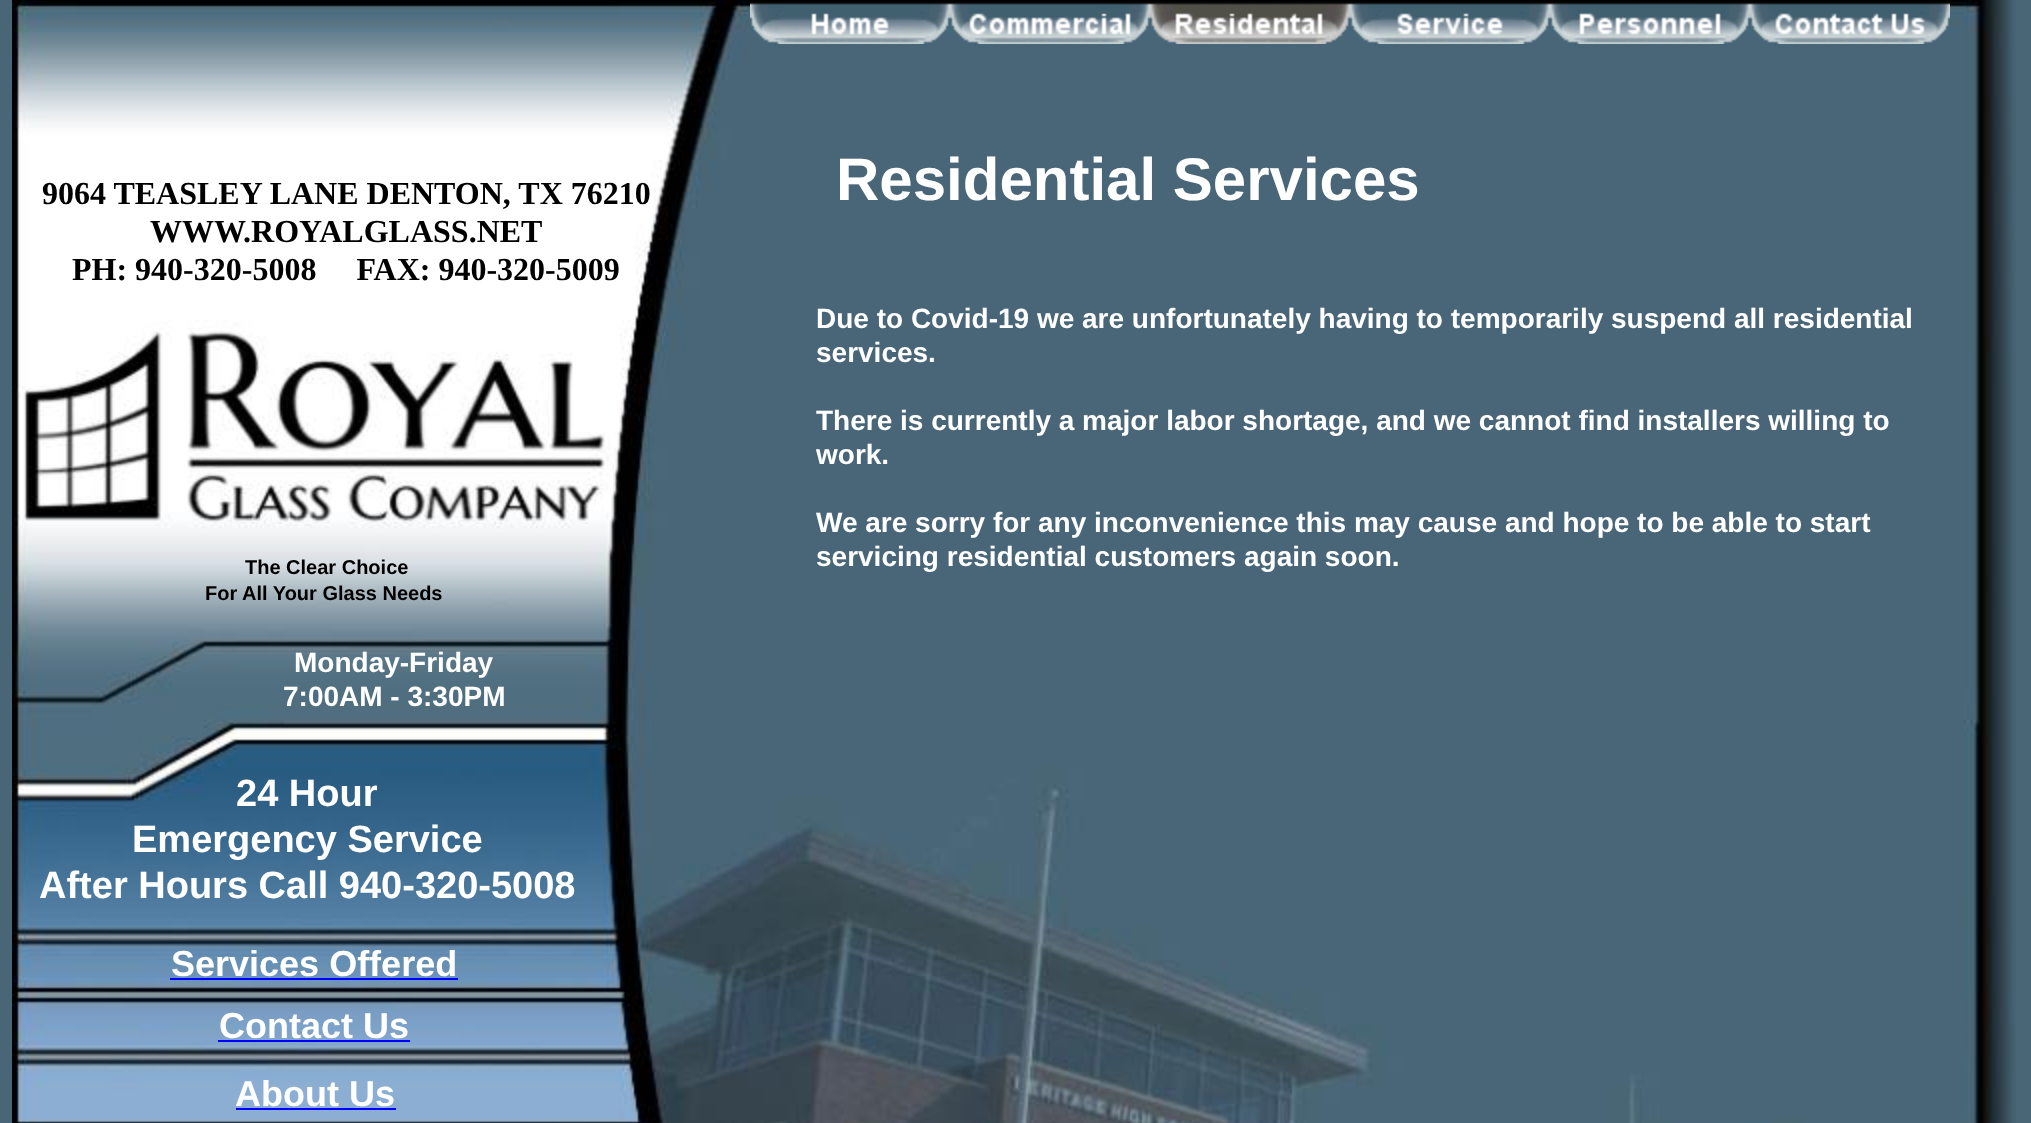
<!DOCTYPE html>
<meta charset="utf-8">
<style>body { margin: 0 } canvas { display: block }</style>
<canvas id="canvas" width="2031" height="1123"></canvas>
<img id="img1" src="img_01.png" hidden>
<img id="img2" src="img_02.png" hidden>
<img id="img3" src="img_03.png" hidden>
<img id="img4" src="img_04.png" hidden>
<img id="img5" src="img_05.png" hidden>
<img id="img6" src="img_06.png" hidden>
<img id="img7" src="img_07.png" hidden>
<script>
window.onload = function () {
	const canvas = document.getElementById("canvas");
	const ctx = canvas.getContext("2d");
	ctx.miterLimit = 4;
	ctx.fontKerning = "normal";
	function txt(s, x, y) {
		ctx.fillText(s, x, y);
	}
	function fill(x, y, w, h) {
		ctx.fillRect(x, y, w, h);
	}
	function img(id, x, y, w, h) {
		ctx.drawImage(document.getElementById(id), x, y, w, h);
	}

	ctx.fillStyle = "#496676";
	fill(0, 0, 2031, 1123);
	img("img1", 12, 0, 2004, 1123);
	img("img2", 750, 2, 200, 42);
	img("img3", 950, 2, 200, 42);
	img("img4", 1150, 2, 200, 42);
	img("img5", 1350, 2, 200, 42);
	img("img6", 1550, 2, 200, 42);
	img("img7", 1750, 2, 200, 42);
	ctx.fillStyle = "#0000FF";
	fill(170, 978, 288, 2);
	fill(218, 1040, 192, 2);
	fill(236, 1108, 160, 2);
	ctx.font = "bold 32px Liberation Serif";
	ctx.fillStyle = "#000000";
	txt("9064 TEASLEY LANE DENTON, TX 76210", 42, 204);
	txt("WWW.ROYALGLASS.NET", 150, 242);
	txt("PH: 940-320-5008     FAX: 940-320-5009", 72, 280);
	ctx.font = "bold 20px Liberation Sans";
	txt("The Clear Choice", 245, 574);
	txt("For All Your Glass Needs", 205, 600);
	ctx.font = "bold 60px Liberation Sans";
	ctx.fillStyle = "#FFFFFF";
	txt("Residential Services", 836, 200);
	ctx.font = "bold 28px Liberation Sans";
	txt("Due to Covid-19 we are unfortunately having to temporarily suspend all residential", 816, 328);
	txt("services.", 816, 362);
	txt("There is currently a major labor shortage, and we cannot find installers willing to", 816, 430);
	txt("work.", 816, 464);
	txt("We are sorry for any inconvenience this may cause and hope to be able to start", 816, 532);
	txt("servicing residential customers again soon.", 816, 566);
	txt("Monday-Friday", 294, 672);
	txt("7:00AM - 3:30PM", 283, 706);
	ctx.font = "bold 38px Liberation Sans";
	txt("24 Hour", 236, 806);
	txt("Emergency Service", 132, 852);
	txt("After Hours Call 940-320-5008", 39, 898);
	ctx.font = "bold 36px Liberation Sans";
	txt("Services Offered", 171, 976);
	txt("Contact Us", 219, 1038);
	txt("About Us", 235, 1106);
};
</script>
